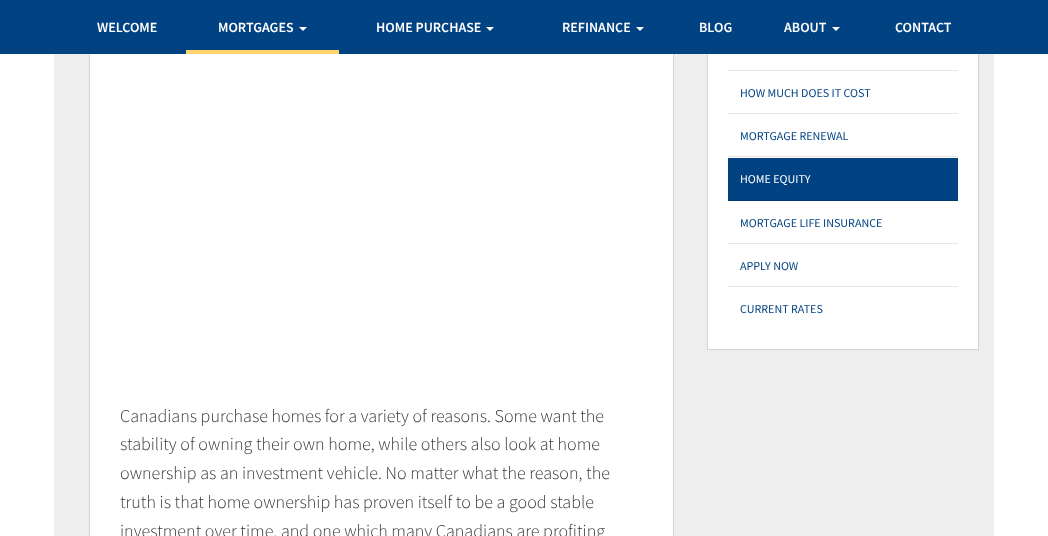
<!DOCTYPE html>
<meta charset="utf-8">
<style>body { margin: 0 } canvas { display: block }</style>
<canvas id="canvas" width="1048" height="536"></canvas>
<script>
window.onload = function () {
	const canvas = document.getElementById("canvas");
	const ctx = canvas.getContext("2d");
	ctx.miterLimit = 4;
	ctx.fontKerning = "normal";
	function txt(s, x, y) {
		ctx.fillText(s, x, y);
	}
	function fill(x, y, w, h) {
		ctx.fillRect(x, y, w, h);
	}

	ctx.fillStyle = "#FFFFFF";
	fill(0, 0, 1048, 536);
	ctx.fillStyle = "#EEEEEE";
	fill(54, 54, 940, 482);
	ctx.fillStyle = "#FFFFFF";
	fill(708, 54, 270, 295);
	ctx.strokeStyle = "#D3D3D3";
	ctx.strokeRect(707.5, -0.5, 271, 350);
	fill(90, 54, 583, 482);
	ctx.strokeRect(89.5, -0.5, 584, 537);
	ctx.fillStyle = "#004282";
	fill(0, 0, 1048, 54);
	ctx.fillStyle = "#FFFFFF";
	ctx.beginPath();
	ctx.moveTo(299, 27);
	ctx.lineTo(307, 27);
	ctx.lineTo(303, 31);
	ctx.closePath();
	ctx.fill();
	ctx.fillStyle = "#FED46C";
	fill(186, 50, 153, 4);
	ctx.fillStyle = "#FFFFFF";
	ctx.beginPath();
	ctx.moveTo(486, 27);
	ctx.lineTo(494, 27);
	ctx.lineTo(490, 31);
	ctx.closePath();
	ctx.fill();
	ctx.beginPath();
	ctx.moveTo(636, 27);
	ctx.lineTo(644, 27);
	ctx.lineTo(640, 31);
	ctx.closePath();
	ctx.fill();
	ctx.beginPath();
	ctx.moveTo(832, 27);
	ctx.lineTo(840, 27);
	ctx.lineTo(836, 31);
	ctx.closePath();
	ctx.fill();
	ctx.fillStyle = "#E6E6E6";
	fill(728, 70, 230, 1);
	fill(728, 113, 230, 1);
	fill(728, 156, 230, 1);
	ctx.fillStyle = "#004282";
	fill(728, 158, 230, 42);
	ctx.fillStyle = "#003B75";
	fill(728, 200, 230, 1);
	ctx.fillStyle = "#E6E6E6";
	fill(728, 243, 230, 1);
	fill(728, 286, 230, 1);
	ctx.font = "600 14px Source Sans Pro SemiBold";
	ctx.fillStyle = "#FFFFFF";
	txt("WELCOME", 97, 32);
	txt("MORTGAGES", 218, 32);
	txt("HOME PURCHASE", 376, 32);
	txt("REFINANCE", 562, 32);
	txt("BLOG", 699, 32);
	txt("ABOUT", 784, 32);
	txt("CONTACT", 895, 32);
	ctx.font = "12px Source Sans Pro";
	ctx.fillStyle = "#004282";
	txt("HOW MUCH DOES IT COST", 740, 97);
	txt("MORTGAGE RENEWAL", 740, 140);
	ctx.fillStyle = "#FFFFFF";
	txt("HOME EQUITY", 740, 183);
	ctx.fillStyle = "#004282";
	txt("MORTGAGE LIFE INSURANCE", 740, 227);
	txt("APPLY NOW", 740, 270);
	txt("CURRENT RATES", 740, 313);
	ctx.font = "300 18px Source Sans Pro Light";
	ctx.fillStyle = "#363636";
	txt("Canadians purchase homes for a variety of reasons. Some want the", 120, 422);
	txt("stability of owning their own home, while others also look at home", 120, 450);
	txt("ownership as an investment vehicle. No matter what the reason, the", 120, 479);
	txt("truth is that home ownership has proven itself to be a good stable", 120, 508);
	txt("investment over time, and one which many Canadians are profiting", 120, 537);
};
</script>
